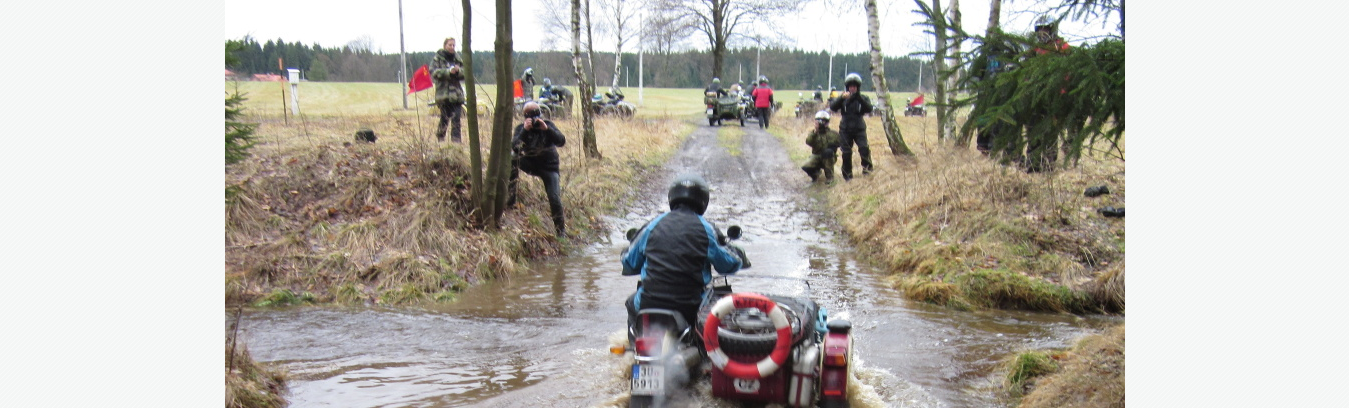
<!DOCTYPE html>
<meta charset="utf-8">
<style>body { margin: 0 } canvas { display: block }</style>
<canvas id="canvas" width="1349" height="408"></canvas>
<img id="img1" src="img_01.png" hidden>
<img id="img2" src="img_02.png" hidden>
<script>
window.onload = function () {
	const canvas = document.getElementById("canvas");
	const ctx = canvas.getContext("2d");
	ctx.miterLimit = 4;
	ctx.fontKerning = "normal";
	function fill(x, y, w, h) {
		ctx.fillRect(x, y, w, h);
	}
	function img(id, x, y, w, h) {
		ctx.drawImage(document.getElementById(id), x, y, w, h);
	}

	ctx.fillStyle = "#FFFFFF";
	fill(0, 0, 1349, 408);
	img("img1", 0, 0, 1349, 408);
	img("img2", 225, 0, 900, 408);
};
</script>
